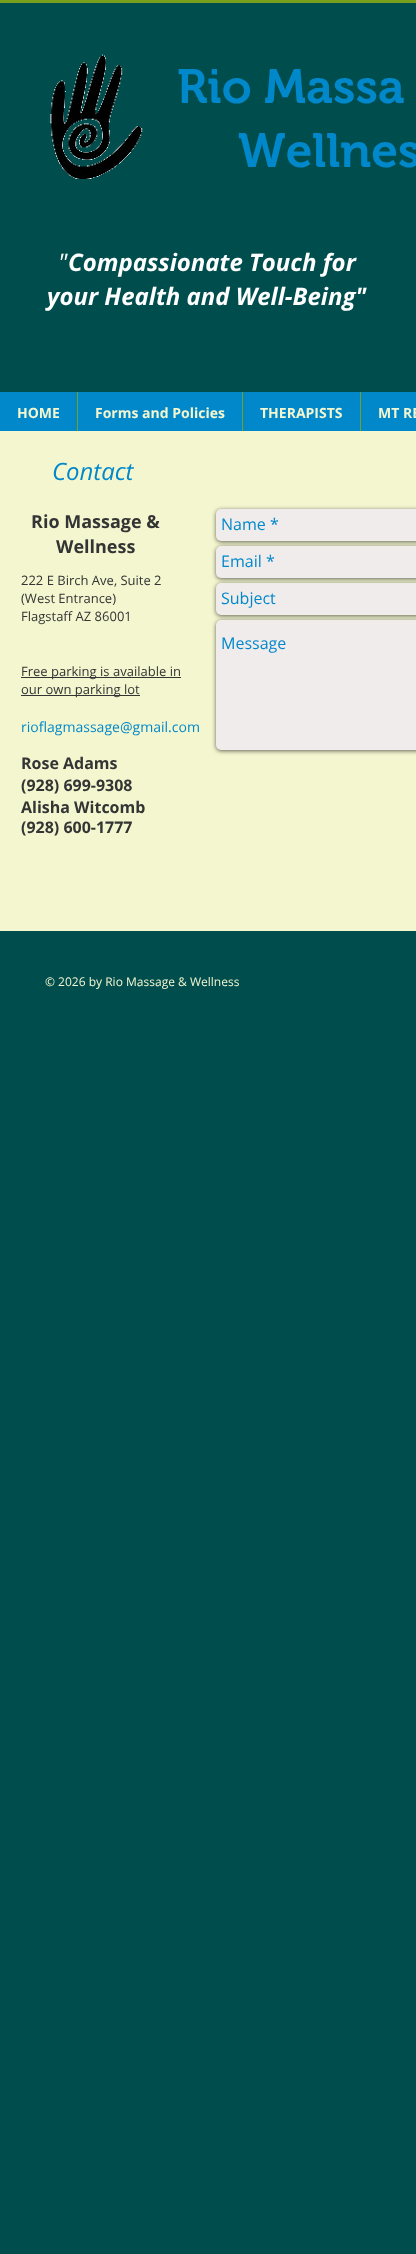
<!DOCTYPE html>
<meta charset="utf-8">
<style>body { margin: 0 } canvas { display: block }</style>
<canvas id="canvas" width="416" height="2254"></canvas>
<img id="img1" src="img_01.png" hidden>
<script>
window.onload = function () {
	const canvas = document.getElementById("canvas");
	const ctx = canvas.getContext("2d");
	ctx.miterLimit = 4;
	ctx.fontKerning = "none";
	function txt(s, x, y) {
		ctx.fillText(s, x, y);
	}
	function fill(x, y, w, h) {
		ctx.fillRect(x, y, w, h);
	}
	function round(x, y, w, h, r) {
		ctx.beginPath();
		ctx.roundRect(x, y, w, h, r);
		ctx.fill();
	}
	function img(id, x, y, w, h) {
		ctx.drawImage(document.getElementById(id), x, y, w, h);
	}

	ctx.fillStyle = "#004D4E";
	fill(0, 0, 416, 2254);
	ctx.fillStyle = "#7A9E1E";
	fill(0, 0, 416, 3);
	img("img1", 48, 54, 95, 125);
	ctx.fillStyle = "#0088CB";
	fill(0, 392, 416, 39);
	ctx.fillStyle = "#7A9E1E";
	fill(77, 392, 1, 42);
	fill(242, 392, 1, 42);
	fill(360, 392, 1, 42);
	ctx.fillStyle = "#F3F6CF";
	fill(0, 431, 416, 500);
	ctx.fillStyle = "rgba(0, 0, 0, 0.6)";
	ctx.filter = "blur(2px)";
	ctx.beginPath();
	ctx.roundRect(216, 510, 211, 32, 5);
	ctx.fill();
	ctx.filter = "none";
	ctx.fillStyle = "#F0ECEB";
	round(216, 509, 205, 32, 5);
	ctx.fillStyle = "rgba(0, 0, 0, 0.6)";
	ctx.filter = "blur(2px)";
	ctx.beginPath();
	ctx.roundRect(216, 547, 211, 32, 5);
	ctx.fill();
	ctx.filter = "none";
	ctx.fillStyle = "#F0ECEB";
	round(216, 546, 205, 32, 5);
	ctx.fillStyle = "rgba(0, 0, 0, 0.6)";
	ctx.filter = "blur(2px)";
	ctx.beginPath();
	ctx.roundRect(216, 584, 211, 32, 5);
	ctx.fill();
	ctx.filter = "none";
	ctx.fillStyle = "#F0ECEB";
	round(216, 583, 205, 32, 5);
	ctx.fillStyle = "rgba(0, 0, 0, 0.6)";
	ctx.filter = "blur(2px)";
	ctx.beginPath();
	ctx.roundRect(216, 621, 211, 130, 5);
	ctx.fill();
	ctx.filter = "none";
	ctx.fillStyle = "#F0ECEB";
	round(216, 620, 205, 130, 5);
	ctx.fillStyle = "#343434";
	fill(21, 677, 160, 1);
	fill(21, 695, 119, 1);
	ctx.font = "600 48px 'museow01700'";
	ctx.fillStyle = "#0088CB";
	txt("Rio Massa", 177, 103);
	txt("Wellnes", 238, 167);
	ctx.font = "italic 24px Open Sans";
	ctx.fillStyle = "#FFFFFF";
	txt("\"", 58, 271);
	ctx.font = "italic bold 24px Open Sans";
	txt("Compassionate Touch for", 68, 271);
	txt("your Health and Well-Being\"", 47, 305);
	ctx.font = "bold 14px Open Sans";
	ctx.fillStyle = "#F3F6CF";
	txt("HOME", 17, 418);
	txt("Forms and Policies", 95, 418);
	txt("THERAPISTS", 260, 418);
	txt("MT RE", 378, 418);
	ctx.font = "italic 24px Open Sans";
	ctx.fillStyle = "#0088CB";
	txt("Contact", 52, 480);
	ctx.font = "bold 18px Open Sans";
	ctx.fillStyle = "#343434";
	txt("Rio Massage &", 31, 528);
	txt("Wellness", 56, 553);
	ctx.font = "16px Open Sans";
	ctx.fillStyle = "#0088CB";
	txt("Name *", 221, 530);
	txt("Email *", 221, 567);
	txt("Subject", 221, 604);
	txt("Message", 221, 649);
	ctx.font = "13px Open Sans";
	ctx.fillStyle = "#343434";
	txt("222 E Birch Ave, Suite 2", 21, 585);
	txt("(West Entrance)", 21, 603);
	txt("Flagstaff AZ 86001", 21, 621);
	txt("Free parking is available in", 21, 676);
	txt("our own parking lot", 21, 694);
	ctx.font = "14px Open Sans";
	ctx.fillStyle = "#0088CB";
	txt("rioflagmassage@gmail.com", 21, 732);
	ctx.font = "bold 16px Open Sans";
	ctx.fillStyle = "#343434";
	txt("Rose Adams", 21, 769);
	txt("(928) 699-9308", 21, 791);
	txt("Alisha Witcomb", 21, 813);
	txt("(928) 600-1777", 21, 833);
	ctx.font = "12px Open Sans";
	ctx.fillStyle = "#F3F6CF";
	txt("© 2026 by Rio Massage & Wellness", 45, 986);
};
</script>
